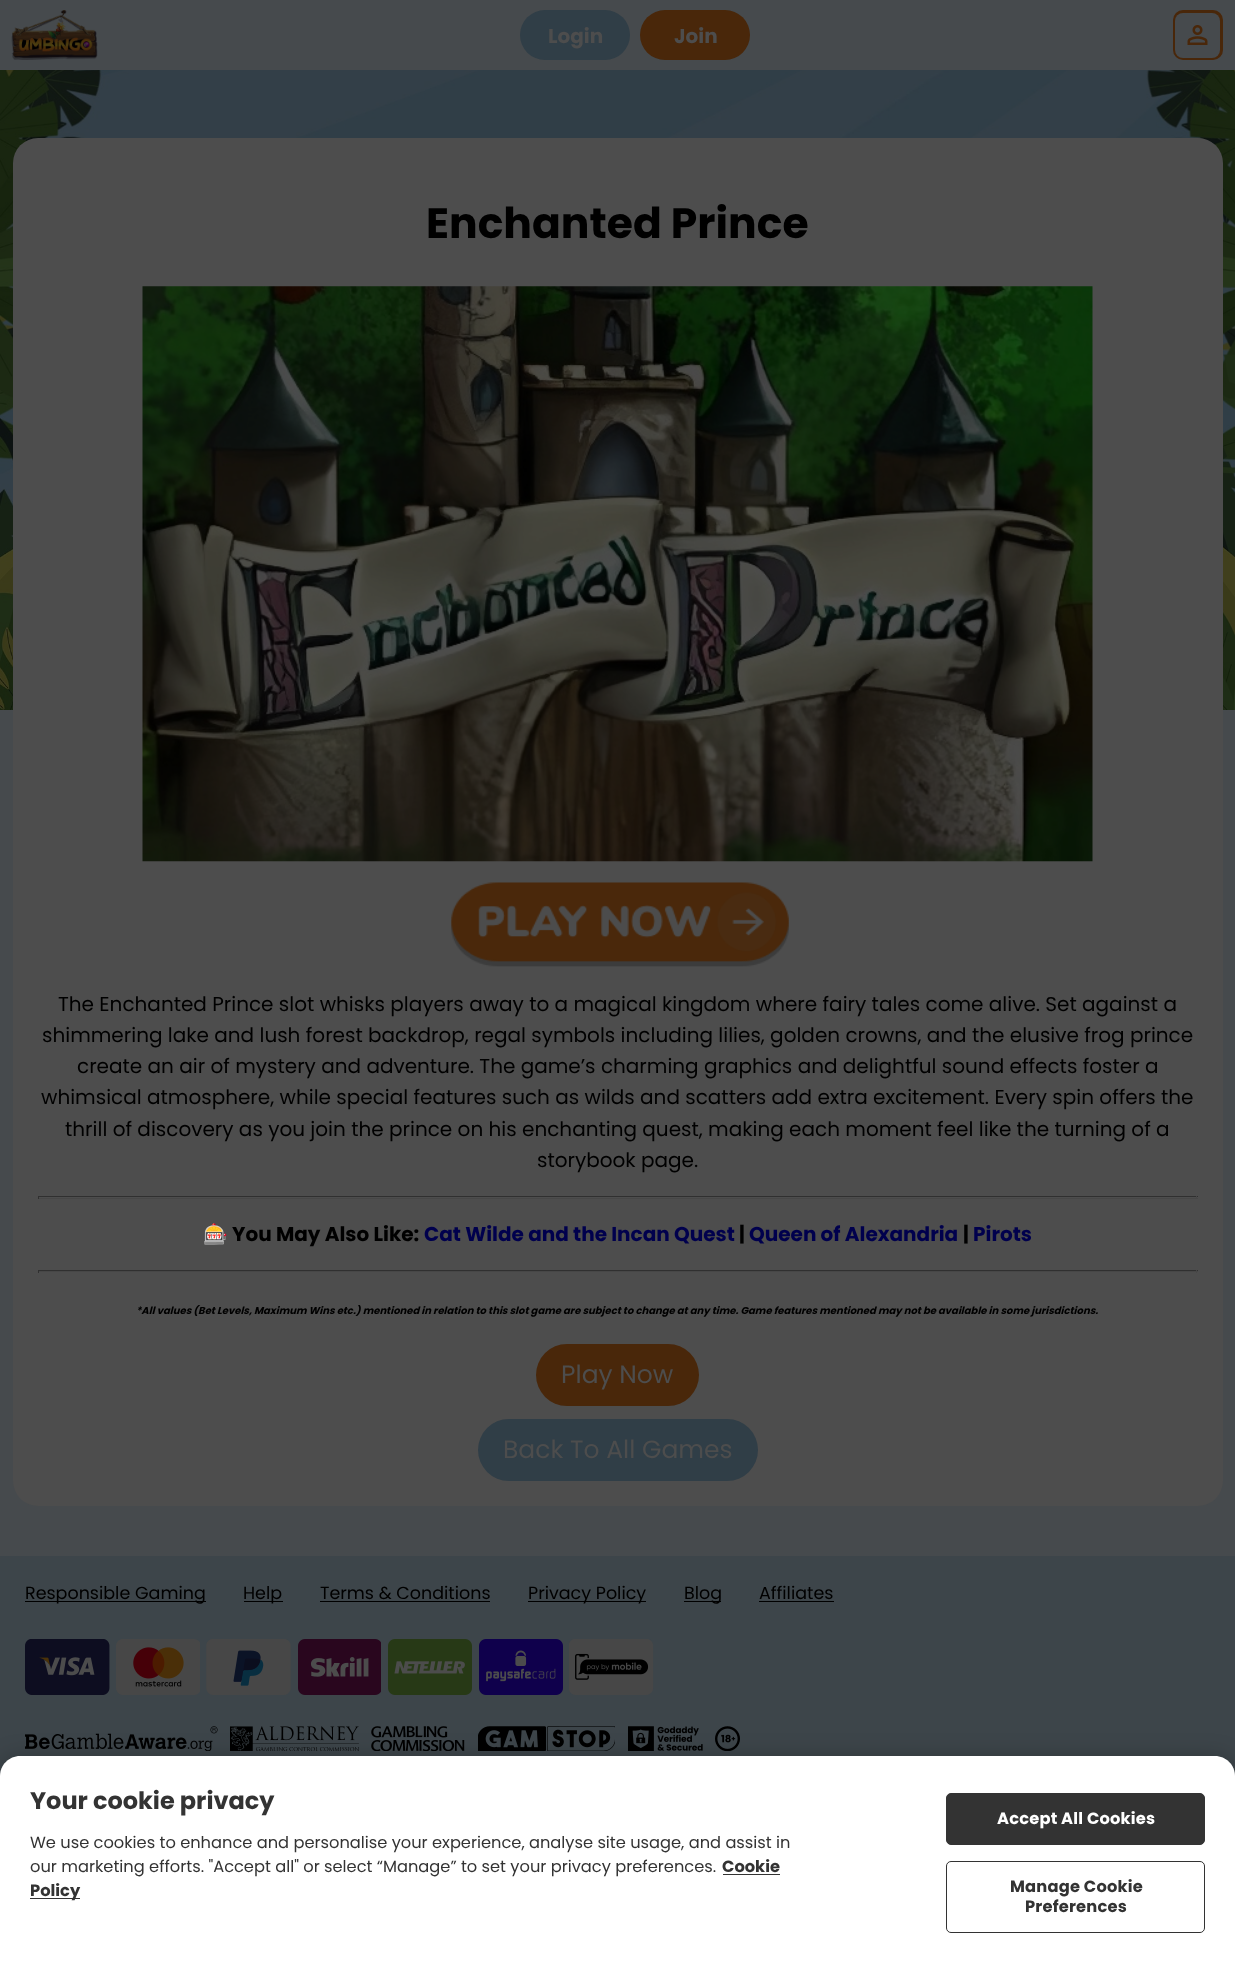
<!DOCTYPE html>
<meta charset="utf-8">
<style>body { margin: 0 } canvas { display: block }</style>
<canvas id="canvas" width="1235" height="1968"></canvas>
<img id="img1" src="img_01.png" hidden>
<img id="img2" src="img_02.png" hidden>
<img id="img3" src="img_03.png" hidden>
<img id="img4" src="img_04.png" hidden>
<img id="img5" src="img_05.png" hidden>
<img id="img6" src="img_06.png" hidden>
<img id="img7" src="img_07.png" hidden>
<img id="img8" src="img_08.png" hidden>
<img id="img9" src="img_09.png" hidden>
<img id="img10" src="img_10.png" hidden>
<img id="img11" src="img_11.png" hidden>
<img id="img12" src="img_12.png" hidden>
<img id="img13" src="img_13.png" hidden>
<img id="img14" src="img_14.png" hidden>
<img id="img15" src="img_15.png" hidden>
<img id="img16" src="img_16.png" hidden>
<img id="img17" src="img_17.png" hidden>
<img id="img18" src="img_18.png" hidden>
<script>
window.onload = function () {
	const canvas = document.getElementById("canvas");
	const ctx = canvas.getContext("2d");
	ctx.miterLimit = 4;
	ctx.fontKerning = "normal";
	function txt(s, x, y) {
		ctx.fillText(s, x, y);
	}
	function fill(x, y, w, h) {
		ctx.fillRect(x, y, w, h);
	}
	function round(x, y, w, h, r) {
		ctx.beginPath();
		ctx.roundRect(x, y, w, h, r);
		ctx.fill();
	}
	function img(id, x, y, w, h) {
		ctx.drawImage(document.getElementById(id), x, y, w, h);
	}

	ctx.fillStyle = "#464A4D";
	fill(0, 0, 1235, 1968);
	img("img1", 0, 70, 1235, 640);
	img("img2", 11, 10, 87, 50);
	ctx.fillStyle = "#303E47";
	round(520, 10, 110, 50, 25);
	ctx.fillStyle = "#49270A";
	round(640, 10, 110, 50, 25);
	round(1173, 10, 50, 50, 10);
	ctx.fillStyle = "#464A4D";
	round(1175, 13, 45, 45, 8);
	img("img3", 1187, 25, 21, 20);
	ctx.fillStyle = "#4D4D4D";
	round(13, 138, 1210, 1368, 25);
	img("img4", 142, 286, 951, 576);
	img("img5", 451, 882, 338, 85);
	ctx.fillStyle = "#303030";
	fill(38, 1196, 1160, 1);
	ctx.fillStyle = "#474747";
	fill(1196, 1196, 1, 3);
	fill(38, 1198, 1160, 1);
	ctx.fillStyle = "#303030";
	fill(38, 1196, 1, 3);
	fill(38, 1270, 1160, 1);
	ctx.fillStyle = "#474747";
	fill(1196, 1270, 1, 3);
	fill(38, 1271, 1160, 1);
	ctx.fillStyle = "#303030";
	fill(38, 1270, 1, 3);
	ctx.fillStyle = "#49270A";
	round(536, 1344, 163, 62, 31);
	ctx.fillStyle = "#303E47";
	round(478, 1419, 280, 62, 31);
	ctx.fillStyle = "#3D454A";
	fill(0, 1556, 1235, 220);
	ctx.fillStyle = "#000000";
	fill(25, 1601, 181, 1);
	fill(244, 1601, 39, 1);
	fill(320, 1601, 170, 1);
	fill(528, 1601, 118, 1);
	fill(684, 1601, 37, 1);
	fill(759, 1601, 75, 1);
	img("img6", 25, 1639, 85, 56);
	img("img7", 116, 1639, 84, 56);
	img("img8", 206, 1639, 85, 56);
	img("img9", 298, 1639, 83, 56);
	img("img10", 388, 1639, 84, 56);
	img("img11", 479, 1639, 84, 56);
	img("img12", 569, 1639, 85, 56);
	img("img13", 25, 1726, 193, 25);
	img("img14", 230, 1726, 129, 25);
	img("img15", 371, 1726, 94, 25);
	img("img16", 478, 1726, 137, 25);
	img("img17", 628, 1726, 75, 25);
	img("img18", 715, 1726, 25, 25);
	ctx.fillStyle = "rgba(0, 0, 0, 0.2)";
	ctx.filter = "blur(11px)";
	ctx.beginPath();
	ctx.roundRect(0, 1756, 1235, 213, 20);
	ctx.fill();
	ctx.filter = "none";
	ctx.fillStyle = "#FFFFFF";
	ctx.beginPath();
	ctx.moveTo(20, 1756);
	ctx.lineTo(1215, 1756);
	ctx.bezierCurveTo(1226, 1756, 1235, 1765, 1235, 1776);
	ctx.lineTo(1235, 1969);
	ctx.lineTo(0, 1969);
	ctx.lineTo(0, 1776);
	ctx.bezierCurveTo(0, 1765, 9, 1756, 20, 1756);
	ctx.closePath();
	ctx.fill();
	ctx.fillStyle = "#333333";
	fill(723, 1874, 57, 1);
	fill(30, 1898, 50, 1);
	ctx.beginPath();
	ctx.roundRect(946.5, 1793.5, 258, 51, 4.5);
	ctx.fill();
	ctx.strokeStyle = "#333333";
	ctx.stroke();
	ctx.beginPath();
	ctx.roundRect(946.5, 1861.5, 258, 71, 4.5);
	ctx.stroke();
	ctx.font = "bold 20px Poppins";
	ctx.fillStyle = "#4D4D4D";
	txt("Login", 548, 43);
	txt("Join", 674, 43);
	ctx.font = "bold 42.5px Poppins";
	ctx.fillStyle = "#000000";
	txt("Enchanted Prince", 426, 238);
	ctx.font = "20px Poppins";
	txt("The Enchanted Prince slot whisks players away to a magical kingdom where fairy tales come alive. Set against a", 58, 1011);
	txt("shimmering lake and lush forest backdrop, regal symbols including lilies, golden crowns, and the elusive frog prince", 42, 1042);
	txt("create an air of mystery and adventure. The game’s charming graphics and delightful sound effects foster a", 77, 1073);
	txt("whimsical atmosphere, while special features such as wilds and scatters add extra excitement. Every spin offers the", 41, 1104);
	txt("thrill of discovery as you join the prince on his enchanting quest, making each moment feel like the turning of a", 65, 1136);
	txt("storybook page.", 537, 1167);
	ctx.font = "bold 20px Noto Color Emoji";
	txt("🎰", 203, 1241);
	ctx.font = "bold 20px Poppins";
	txt("You May Also Like:", 232, 1241);
	ctx.fillStyle = "#00004D";
	txt("Cat Wilde and the Incan Quest", 424, 1241);
	ctx.fillStyle = "#000000";
	txt("|", 739, 1241);
	ctx.fillStyle = "#00004D";
	txt("Queen of Alexandria", 749, 1241);
	ctx.fillStyle = "#000000";
	txt("|", 963, 1241);
	ctx.fillStyle = "#00004D";
	txt("Pirots", 973, 1241);
	ctx.font = "italic bold 10px Poppins";
	ctx.fillStyle = "#000000";
	txt("*All values (Bet Levels, Maximum Wins etc.) mentioned in relation to this slot game are subject to change at any time. Game features mentioned may not be available in some jurisdictions.", 136, 1314);
	ctx.font = "25px Poppins";
	ctx.fillStyle = "#4D4D4D";
	txt("Play Now", 561, 1383);
	txt("Back To All Games", 503, 1458);
	ctx.font = "17.5px Poppins";
	ctx.fillStyle = "#000000";
	txt("Responsible Gaming", 25, 1599);
	txt("Help", 243, 1599);
	txt("Terms & Conditions", 320, 1599);
	txt("Privacy Policy", 528, 1599);
	txt("Blog", 684, 1599);
	txt("Affiliates", 759, 1599);
	ctx.font = "bold 24px Poppins";
	ctx.fillStyle = "#333333";
	txt("Your cookie privacy", 30, 1809);
	ctx.font = "16.25px Poppins";
	txt("We use cookies to enhance and personalise your experience, analyse site usage, and assist in", 30, 1848);
	txt("our marketing efforts. \"Accept all\" or select “Manage” to set your privacy preferences.", 30, 1872);
	ctx.font = "bold 16.25px Poppins";
	txt("Cookie", 722, 1872);
	txt("Policy", 30, 1896);
	ctx.letterSpacing = "0.2px";
	ctx.fillStyle = "#FFFFFF";
	txt("Accept All Cookies", 997, 1824);
	ctx.fillStyle = "#333333";
	txt("Manage Cookie", 1010, 1892);
	txt("Preferences", 1025, 1912);
};
</script>
